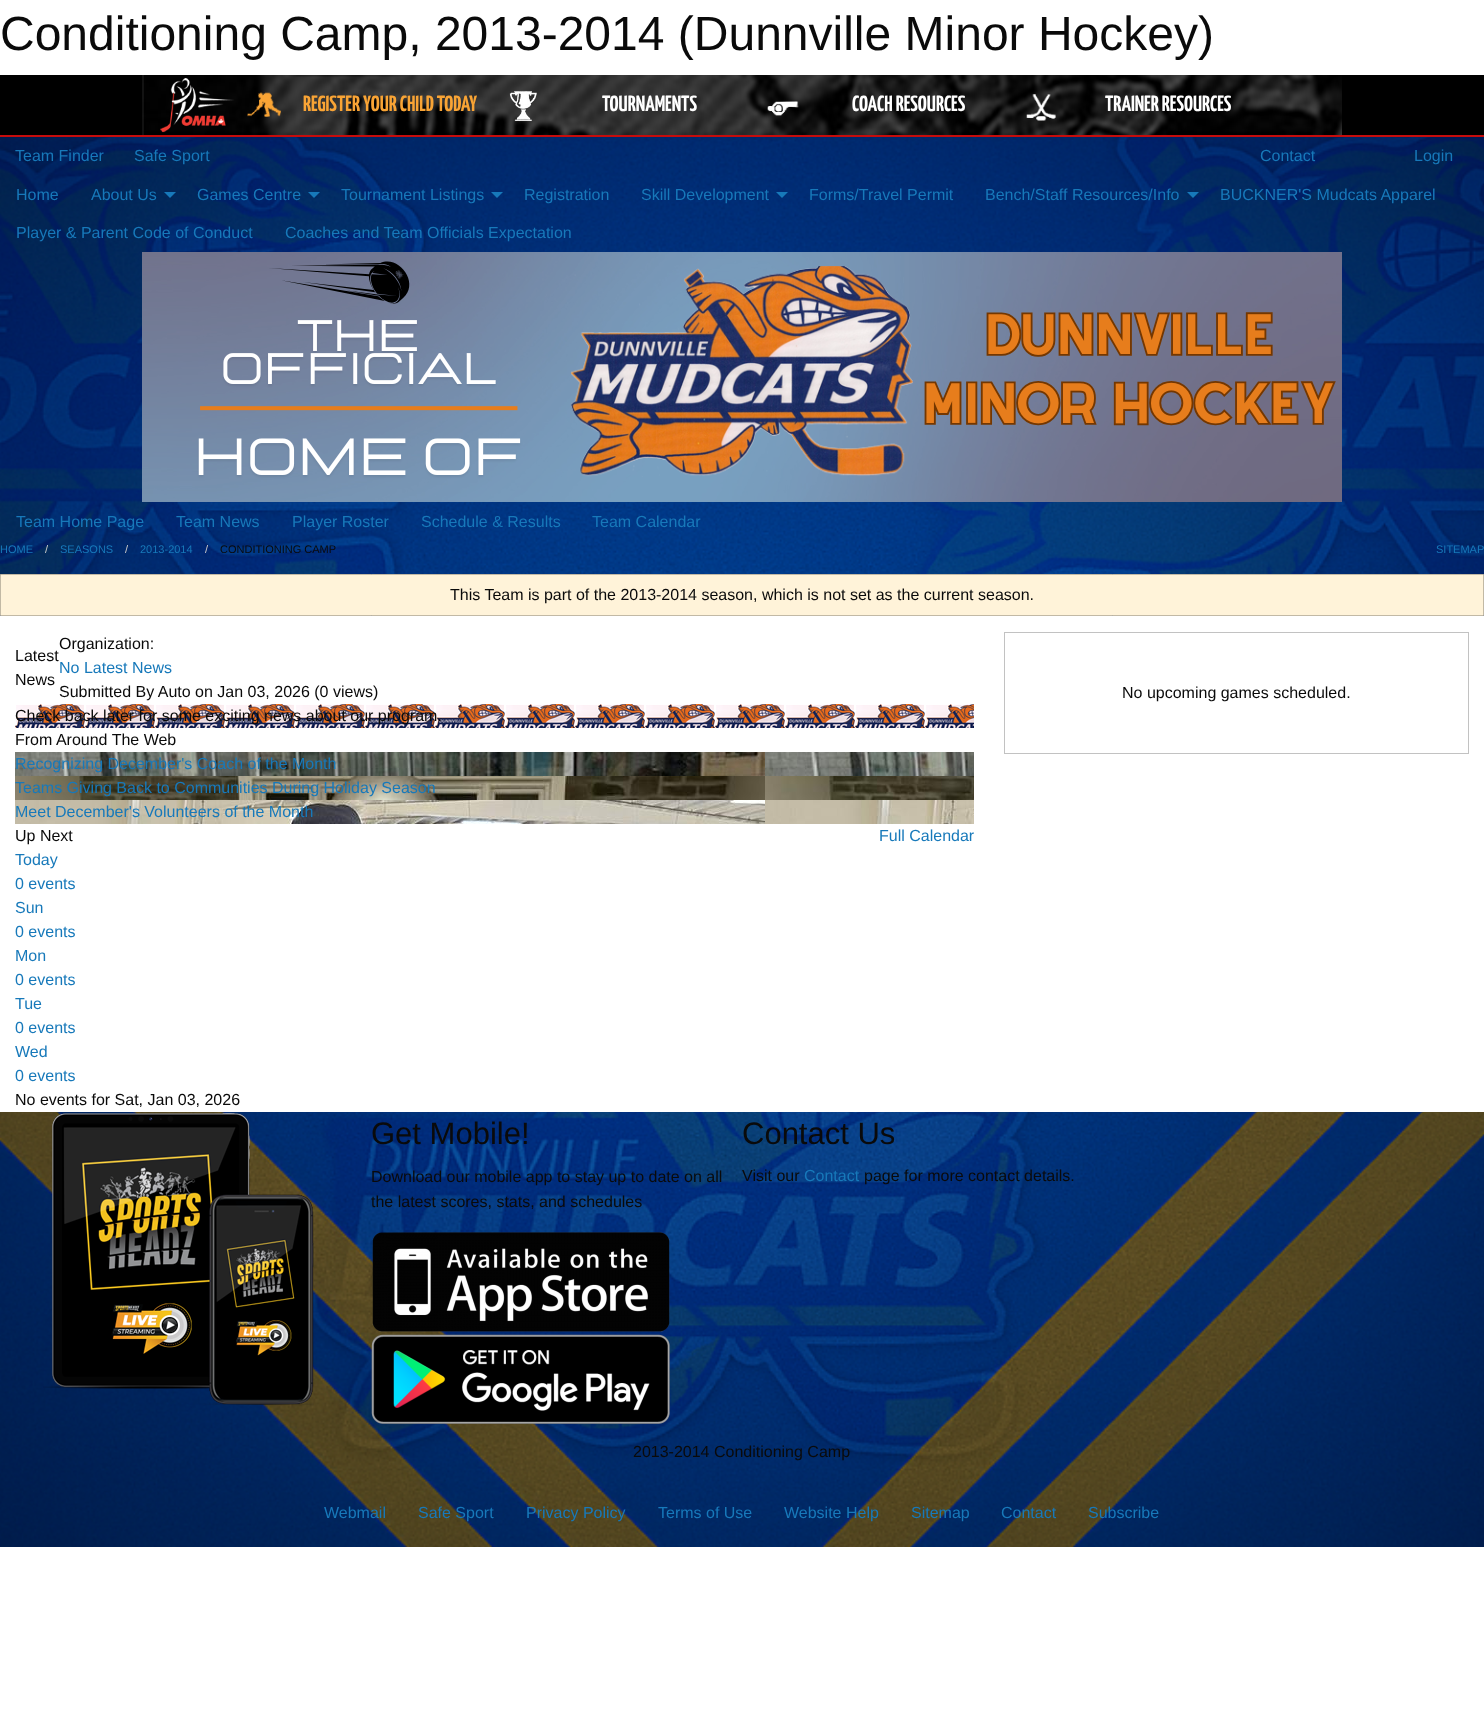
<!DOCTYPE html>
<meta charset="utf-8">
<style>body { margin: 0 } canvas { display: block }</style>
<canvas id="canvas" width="1484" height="1720"></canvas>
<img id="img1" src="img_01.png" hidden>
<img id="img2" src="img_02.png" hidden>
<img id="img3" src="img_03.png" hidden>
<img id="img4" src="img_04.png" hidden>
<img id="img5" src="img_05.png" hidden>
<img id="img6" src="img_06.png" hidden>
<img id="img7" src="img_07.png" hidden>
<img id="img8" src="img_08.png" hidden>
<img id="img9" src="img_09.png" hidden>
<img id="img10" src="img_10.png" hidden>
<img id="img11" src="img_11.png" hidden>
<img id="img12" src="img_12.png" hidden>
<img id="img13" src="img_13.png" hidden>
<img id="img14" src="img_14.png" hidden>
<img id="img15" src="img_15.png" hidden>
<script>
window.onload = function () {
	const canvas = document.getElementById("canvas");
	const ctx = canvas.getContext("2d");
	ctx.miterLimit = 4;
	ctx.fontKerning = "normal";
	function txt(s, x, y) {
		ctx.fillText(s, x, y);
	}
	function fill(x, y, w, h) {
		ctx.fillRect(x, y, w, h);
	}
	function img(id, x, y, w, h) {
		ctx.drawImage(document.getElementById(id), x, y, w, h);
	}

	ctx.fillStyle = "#FFFFFF";
	fill(0, 0, 1484, 1720);
	ctx.fillStyle = "#000000";
	fill(0, 75, 1484, 60);
	ctx.fillStyle = "#C60C0C";
	fill(0, 135, 1484, 2);
	img("img1", 142, 75, 1200, 60);
	img("img2", 160, 78, 74, 55);
	img("img3", 247, 92, 34, 25);
	img("img4", 509, 91, 28, 31);
	img("img5", 767, 101, 32, 15);
	img("img6", 1026, 94, 30, 27);
	img("img7", 0, 137, 1484, 1410);
	ctx.fillStyle = "#1779BA";
	ctx.beginPath();
	ctx.moveTo(164, 192);
	ctx.lineTo(176, 192);
	ctx.lineTo(170, 198);
	ctx.closePath();
	ctx.fill();
	ctx.beginPath();
	ctx.moveTo(308, 192);
	ctx.lineTo(320, 192);
	ctx.lineTo(314, 198);
	ctx.closePath();
	ctx.fill();
	ctx.beginPath();
	ctx.moveTo(491, 192);
	ctx.lineTo(503, 192);
	ctx.lineTo(497, 198);
	ctx.closePath();
	ctx.fill();
	ctx.beginPath();
	ctx.moveTo(776, 192);
	ctx.lineTo(788, 192);
	ctx.lineTo(782, 198);
	ctx.closePath();
	ctx.fill();
	ctx.beginPath();
	ctx.moveTo(1187, 192);
	ctx.lineTo(1199, 192);
	ctx.lineTo(1193, 198);
	ctx.closePath();
	ctx.fill();
	img("img8", 142, 252, 1200, 250);
	ctx.fillStyle = "#FFFFFF";
	fill(0, 616, 1484, 496);
	ctx.fillStyle = "#FFF3D9";
	ctx.beginPath();
	ctx.rect(0.5, 574.5, 1483, 41);
	ctx.fill();
	ctx.strokeStyle = "#C2B9A5";
	ctx.stroke();
	img("img9", 15, 704, 959, 24);
	img("img10", 15, 752, 959, 24);
	img("img11", 15, 776, 959, 24);
	img("img12", 15, 800, 959, 24);
	ctx.strokeStyle = "#C2C2C2";
	ctx.strokeRect(1004.5, 632.5, 464, 121);
	img("img13", 43, 1112, 271, 293);
	img("img14", 372, 1232, 298, 100);
	img("img15", 371, 1334, 299, 90);
	ctx.font = "48px Liberation Sans";
	ctx.fillStyle = "#0A0A0A";
	txt("Conditioning Camp, 2013-2014 (Dunnville Minor Hockey)", 0, 50);
	ctx.font = "200 22px Yanone Kaffeesatz";
	ctx.fillStyle = "#F9A435";
	txt("REGISTER YOUR CHILD TODAY", 303, 111);
	ctx.fillStyle = "#FFFFFF";
	txt("TOURNAMENTS", 602, 111);
	txt("COACH RESOURCES", 852, 111);
	txt("TRAINER RESOURCES", 1105, 111);
	ctx.font = "16px Liberation Sans";
	ctx.fillStyle = "#1779BA";
	txt("Team Finder", 15, 161);
	txt("Safe Sport", 134, 161);
	txt("Contact", 1260, 161);
	txt("Login", 1414, 161);
	txt("Home", 16, 200);
	txt("About Us", 91, 200);
	txt("Games Centre", 197, 200);
	txt("Tournament Listings", 341, 200);
	txt("Registration", 524, 200);
	txt("Skill Development", 641, 200);
	txt("Forms/Travel Permit", 809, 200);
	txt("Bench/Staff Resources/Info", 985, 200);
	txt("BUCKNER'S Mudcats Apparel", 1220, 200);
	txt("Player & Parent Code of Conduct", 16, 238);
	txt("Coaches and Team Officials Expectation", 285, 238);
	txt("Team Home Page", 16, 527);
	txt("Team News", 176, 527);
	txt("Player Roster", 292, 527);
	txt("Schedule & Results", 421, 527);
	txt("Team Calendar", 592, 527);
	ctx.font = "11px Liberation Sans";
	txt("HOME", 0, 553);
	ctx.fillStyle = "#CACACA";
	txt("/", 45, 553);
	ctx.fillStyle = "#1779BA";
	txt("SEASONS", 60, 553);
	ctx.fillStyle = "#CACACA";
	txt("/", 125, 553);
	ctx.fillStyle = "#1779BA";
	txt("2013-2014", 140, 553);
	ctx.fillStyle = "#CACACA";
	txt("/", 205, 553);
	ctx.fillStyle = "#0A0A0A";
	txt("CONDITIONING CAMP", 220, 553);
	ctx.fillStyle = "#1779BA";
	txt("SITEMAP", 1436, 553);
	ctx.font = "16px Liberation Sans";
	ctx.fillStyle = "#0A0A0A";
	txt("This Team is part of the 2013-2014 season, which is not set as the current season.", 450, 600);
	txt("Latest", 15, 661);
	txt("News", 15, 685);
	txt("Organization:", 59, 649);
	ctx.fillStyle = "#1779BA";
	txt("No Latest News", 59, 673);
	ctx.fillStyle = "#0A0A0A";
	txt("Submitted By Auto on Jan 03, 2026 (0 views)", 59, 697);
	txt("Check back later for some exciting news about our program.", 15, 721);
	txt("From Around The Web", 15, 745);
	ctx.fillStyle = "#1779BA";
	txt("Recognizing December's Coach of the Month", 15, 769);
	txt("Teams Giving Back to Communities During Holiday Season", 15, 793);
	txt("Meet December's Volunteers of the Month", 15, 817);
	ctx.fillStyle = "#0A0A0A";
	txt("No upcoming games scheduled.", 1122, 698);
	txt("Up Next", 15, 841);
	ctx.fillStyle = "#1779BA";
	txt("Full Calendar", 879, 841);
	txt("Today", 15, 865);
	txt("0 events", 15, 889);
	txt("Sun", 15, 913);
	txt("0 events", 15, 937);
	txt("Mon", 15, 961);
	txt("0 events", 15, 985);
	txt("Tue", 15, 1009);
	txt("0 events", 15, 1033);
	txt("Wed", 15, 1057);
	txt("0 events", 15, 1081);
	ctx.fillStyle = "#0A0A0A";
	txt("No events for Sat, Jan 03, 2026", 15, 1105);
	ctx.font = "31px Liberation Sans";
	txt("Get Mobile!", 371, 1144);
	ctx.font = "16px Liberation Sans";
	txt("Download our mobile app to stay up to date on all", 371, 1182);
	txt("the latest scores, stats, and schedules", 371, 1207);
	ctx.font = "31px Liberation Sans";
	txt("Contact Us", 742, 1144);
	ctx.font = "16px Liberation Sans";
	txt("Visit our", 742, 1181);
	ctx.fillStyle = "#1779BA";
	txt("Contact", 804, 1181);
	ctx.fillStyle = "#0A0A0A";
	txt("page for more contact details.", 864, 1181);
	txt("2013-2014 Conditioning Camp", 633, 1457);
	ctx.fillStyle = "#1779BA";
	txt("Webmail", 324, 1518);
	txt("Safe Sport", 418, 1518);
	txt("Privacy Policy", 526, 1518);
	txt("Terms of Use", 658, 1518);
	txt("Website Help", 784, 1518);
	txt("Sitemap", 911, 1518);
	txt("Contact", 1001, 1518);
	txt("Subscribe", 1088, 1518);
};
</script>
